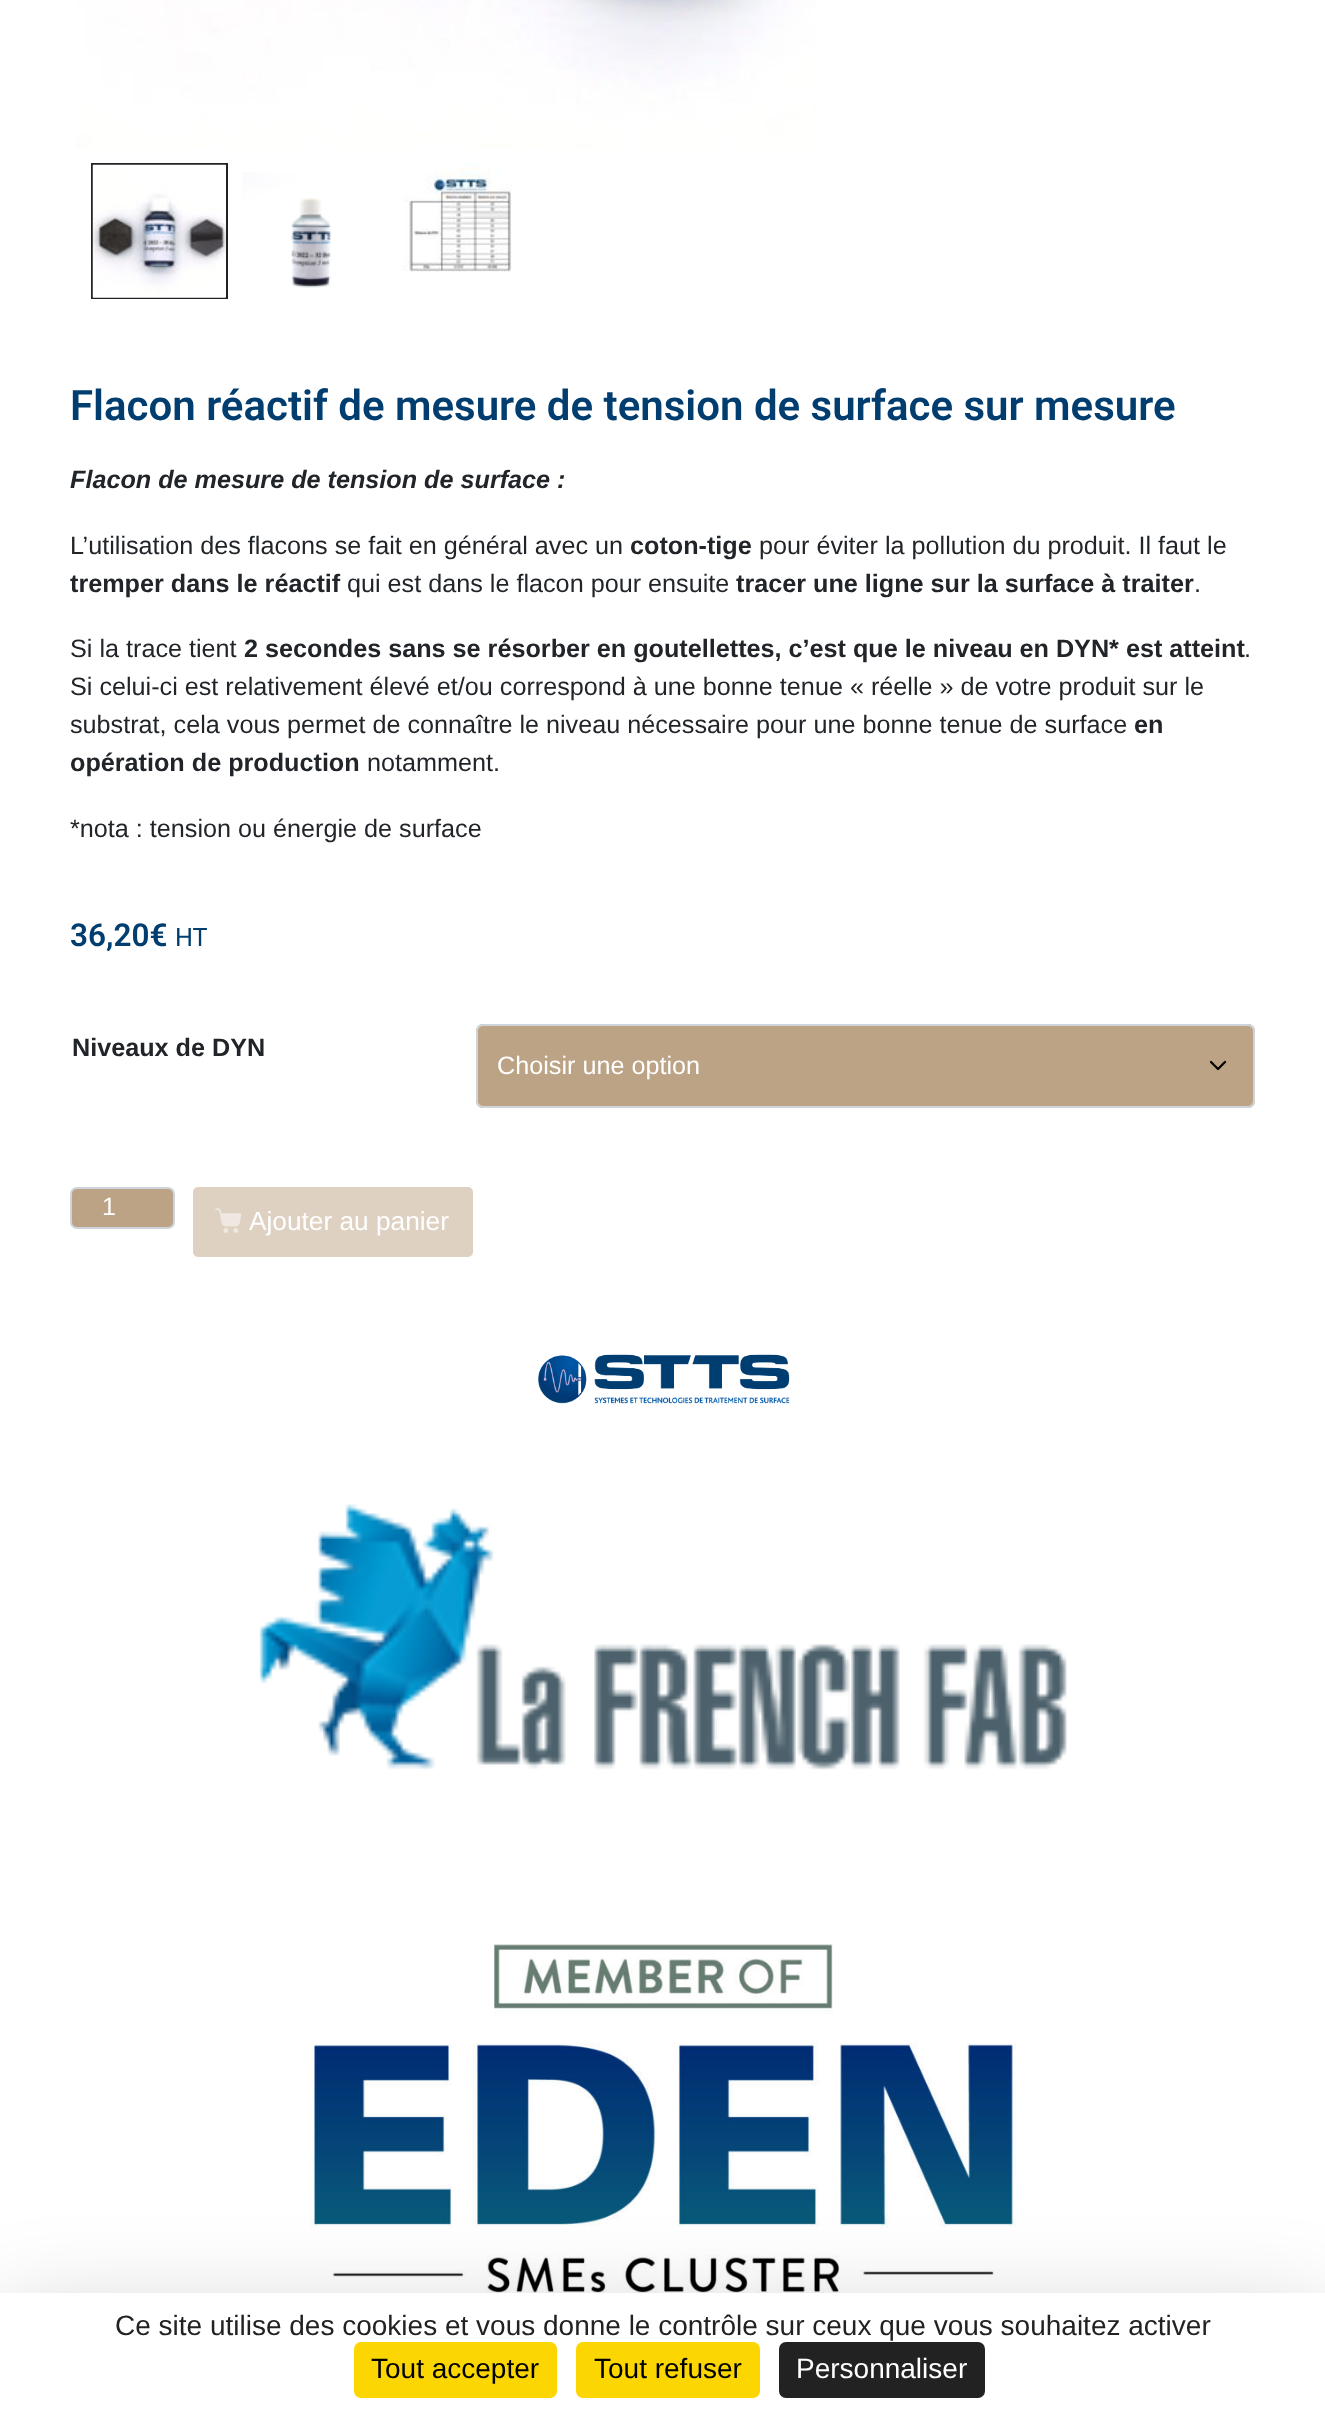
<!DOCTYPE html>
<meta charset="utf-8">
<style>body { margin: 0 } canvas { display: block }</style>
<canvas id="canvas" width="1325" height="2415"></canvas>
<img id="img1" src="img_01.png" hidden>
<img id="img2" src="img_02.png" hidden>
<img id="img3" src="img_03.png" hidden>
<img id="img4" src="img_04.png" hidden>
<img id="img5" src="img_05.png" hidden>
<img id="img6" src="img_06.png" hidden>
<img id="img7" src="img_07.png" hidden>
<img id="img8" src="img_08.png" hidden>
<script>
window.onload = function () {
	const canvas = document.getElementById("canvas");
	const ctx = canvas.getContext("2d");
	ctx.miterLimit = 4;
	ctx.fontKerning = "normal";
	function txt(s, x, y) {
		ctx.fillText(s, x, y);
	}
	function fill(x, y, w, h) {
		ctx.fillRect(x, y, w, h);
	}
	function round(x, y, w, h, r) {
		ctx.beginPath();
		ctx.roundRect(x, y, w, h, r);
		ctx.fill();
	}
	function img(id, x, y, w, h) {
		ctx.drawImage(document.getElementById(id), x, y, w, h);
	}

	ctx.fillStyle = "#FFFFFF";
	fill(0, 0, 1325, 2415);
	img("img1", 76, 0, 741, 149);
	ctx.strokeStyle = "#222222";
	ctx.lineWidth = 2;
	ctx.strokeRect(92, 164, 135, 134);
	img("img2", 92, 164, 134, 134);
	img("img3", 242, 172, 89, 116);
	img("img4", 403, 163, 109, 110);
	ctx.fillStyle = "#BDA385";
	round(476, 1024, 779, 84, 7);
	ctx.beginPath();
	ctx.moveTo(1211, 1062);
	ctx.lineTo(1218, 1069);
	ctx.lineTo(1225, 1062);
	ctx.strokeStyle = "#000000";
	ctx.lineWidth = 2.3;
	ctx.lineCap = "round";
	ctx.lineJoin = "round";
	ctx.stroke();
	ctx.beginPath();
	ctx.roundRect(477, 1025, 777, 82, 6);
	ctx.strokeStyle = "#CED4DA";
	ctx.lineWidth = 2;
	ctx.lineJoin = "miter";
	ctx.stroke();
	ctx.beginPath();
	ctx.roundRect(71, 1188, 103, 40, 6);
	ctx.fill();
	ctx.stroke();
	ctx.fillStyle = "#DED1C2";
	ctx.beginPath();
	ctx.roundRect(194, 1188, 278, 68, 4);
	ctx.fill();
	ctx.strokeStyle = "#DED1C2";
	ctx.stroke();
	img("img5", 215, 1208, 27, 25);
	img("img6", 538, 1354, 252, 50);
	img("img7", 259, 1504, 808, 266);
	img("img8", 310, 1943, 706, 350);
	ctx.fillStyle = "rgba(0, 0, 0, 0.25)";
	ctx.filter = "blur(52.5px)";
	ctx.beginPath();
	ctx.rect(0, 2328, 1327, 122);
	ctx.fill();
	ctx.filter = "none";
	ctx.fillStyle = "#FFFFFF";
	fill(0, 2293, 1325, 122);
	ctx.fillStyle = "#FBD600";
	round(354, 2342, 203, 56, 7);
	round(576, 2342, 184, 56, 7);
	ctx.fillStyle = "#222222";
	round(779, 2342, 206, 56, 7);
	ctx.font = "600 42px Roboto";
	ctx.fillStyle = "#013E6F";
	txt("Flacon réactif de mesure de tension de surface sur mesure", 70, 420);
	ctx.font = "italic bold 25.2px Liberation Sans";
	ctx.fillStyle = "#212529";
	txt("Flacon de mesure de tension de surface :", 70, 488);
	ctx.font = "25.2px Liberation Sans";
	txt("L’utilisation des flacons se fait en général avec un", 70, 554);
	ctx.font = "bold 25.2px Liberation Sans";
	txt("coton-tige", 630, 554);
	ctx.font = "25.2px Liberation Sans";
	txt("pour éviter la pollution du produit. Il faut le", 759, 554);
	ctx.font = "bold 25.2px Liberation Sans";
	txt("tremper dans le réactif", 70, 592);
	ctx.font = "25.2px Liberation Sans";
	txt("qui est dans le flacon pour ensuite", 347, 592);
	ctx.font = "bold 25.2px Liberation Sans";
	txt("tracer une ligne sur la surface à traiter", 736, 592);
	ctx.font = "25.2px Liberation Sans";
	txt(".", 1194, 592);
	txt("Si la trace tient", 70, 657);
	ctx.font = "bold 25.2px Liberation Sans";
	txt("2 secondes sans se résorber en goutellettes, c’est que le niveau en DYN* est atteint", 244, 657);
	ctx.font = "25.2px Liberation Sans";
	txt(".", 1244, 657);
	txt("Si celui-ci est relativement élevé et/ou correspond à une bonne tenue « réelle » de votre produit sur le", 70, 695);
	txt("substrat, cela vous permet de connaître le niveau nécessaire pour une bonne tenue de surface", 70, 733);
	ctx.font = "bold 25.2px Liberation Sans";
	txt("en", 1134, 733);
	txt("opération de production", 70, 771);
	ctx.font = "25.2px Liberation Sans";
	txt("notamment.", 367, 771);
	txt("*nota : tension ou énergie de surface", 70, 837);
	ctx.font = "600 31.5px Roboto";
	ctx.fillStyle = "#013E6F";
	txt("36,20€", 70, 946);
	ctx.font = "25.2px Roboto";
	txt("HT", 175, 946);
	ctx.font = "bold 25.2px Liberation Sans";
	ctx.fillStyle = "#212529";
	txt("Niveaux de DYN", 72, 1056);
	ctx.font = "25.2px Liberation Sans";
	ctx.fillStyle = "#FFFFFF";
	txt("Choisir une option", 497, 1074);
	txt("1", 102, 1215);
	ctx.font = "26.25px Liberation Sans";
	txt("Ajouter au panier", 249, 1230);
	ctx.font = "28px Liberation Sans";
	ctx.fillStyle = "#222222";
	txt("Ce site utilise des cookies et vous donne le contrôle sur ceux que vous souhaitez activer", 115, 2335);
	ctx.fillStyle = "#000000";
	txt("Tout accepter", 371, 2378);
	txt("Tout refuser", 594, 2378);
	ctx.fillStyle = "#FFFFFF";
	txt("Personnaliser", 796, 2378);
};
</script>
